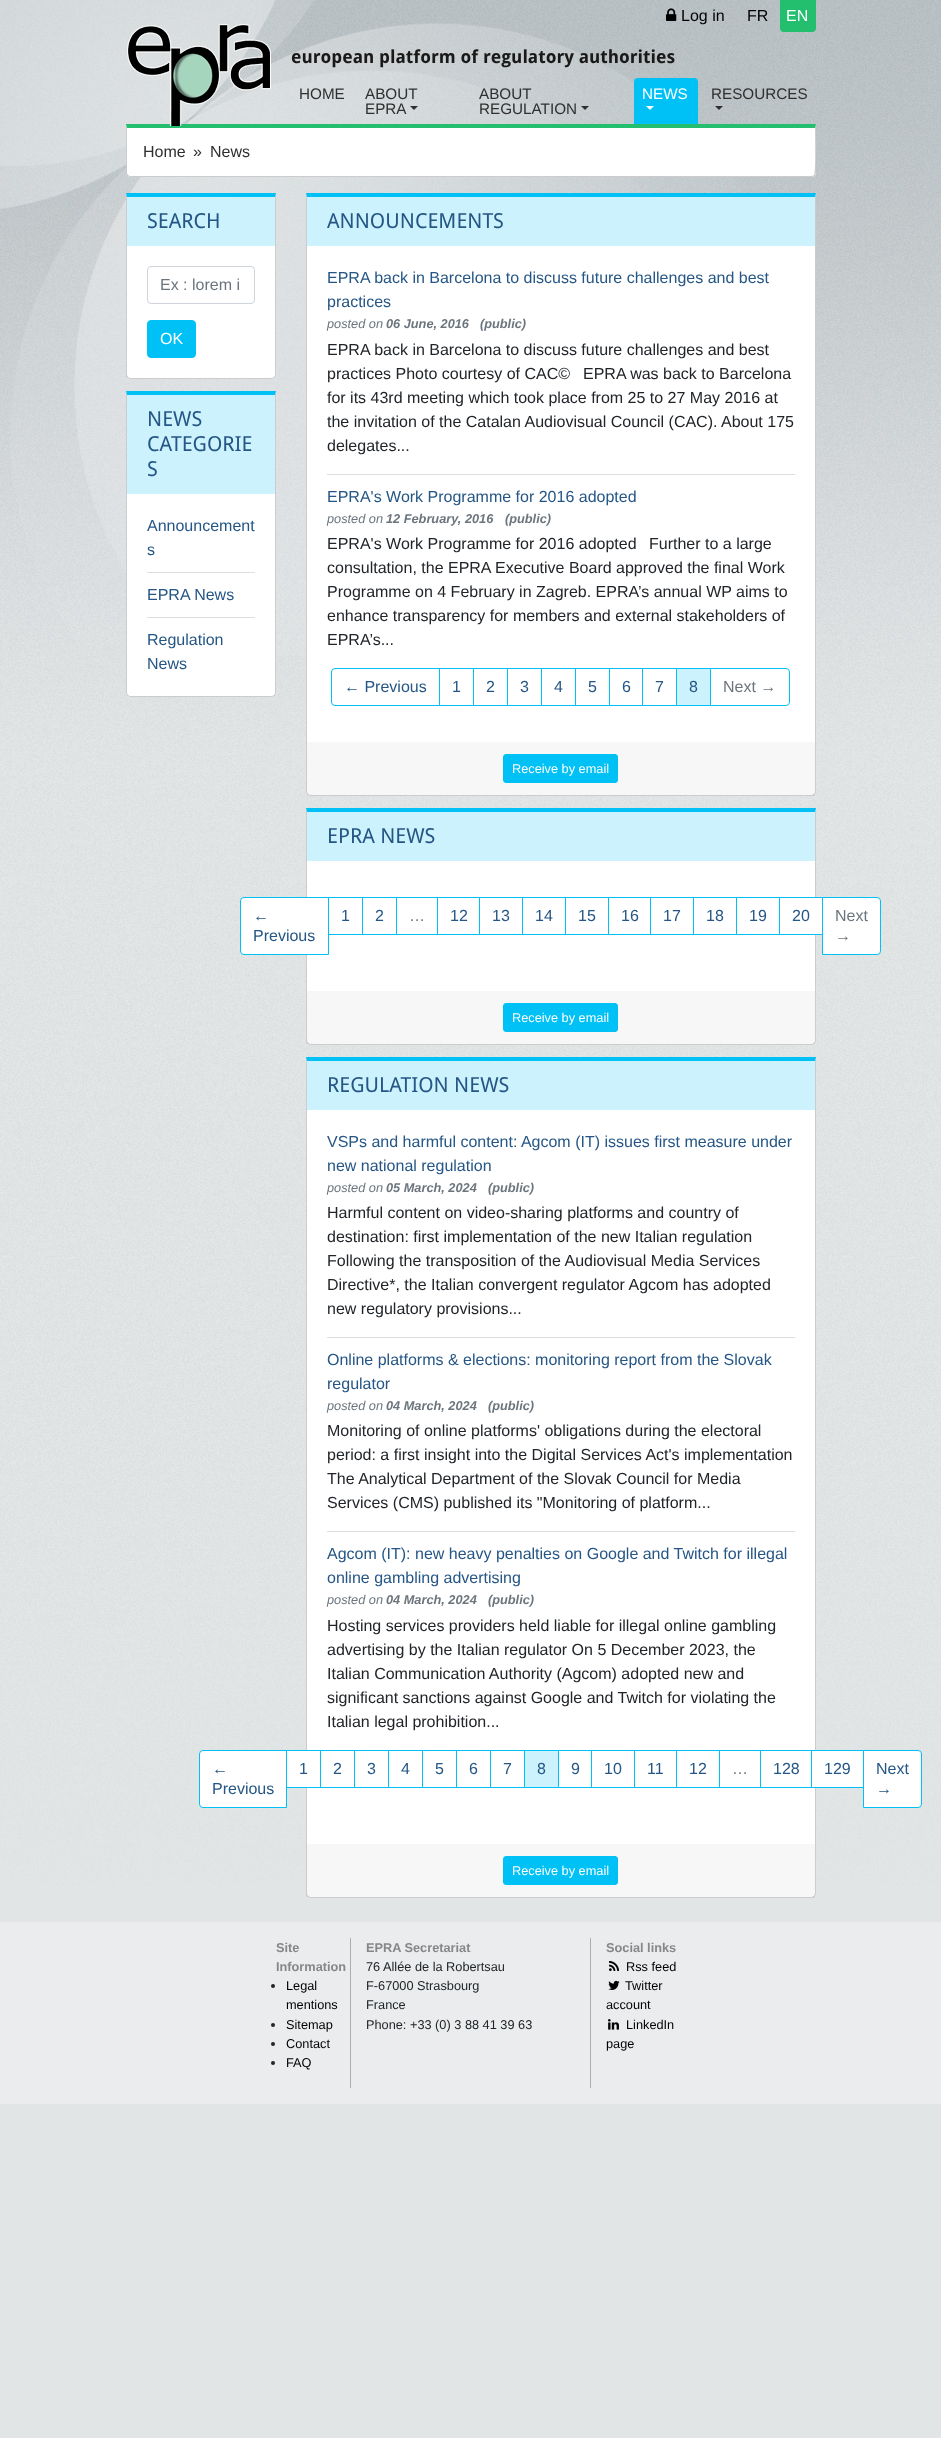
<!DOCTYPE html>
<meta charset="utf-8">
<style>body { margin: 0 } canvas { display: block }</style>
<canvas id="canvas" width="941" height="2438"></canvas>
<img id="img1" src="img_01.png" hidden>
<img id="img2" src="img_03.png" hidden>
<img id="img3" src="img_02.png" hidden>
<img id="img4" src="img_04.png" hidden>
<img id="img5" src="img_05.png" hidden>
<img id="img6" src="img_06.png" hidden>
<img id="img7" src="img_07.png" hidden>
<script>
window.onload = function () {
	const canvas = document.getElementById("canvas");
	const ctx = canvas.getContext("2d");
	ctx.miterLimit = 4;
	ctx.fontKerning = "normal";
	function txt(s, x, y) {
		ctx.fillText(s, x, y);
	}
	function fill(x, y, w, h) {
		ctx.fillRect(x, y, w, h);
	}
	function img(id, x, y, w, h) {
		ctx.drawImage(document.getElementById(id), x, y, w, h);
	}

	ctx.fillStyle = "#E1E5E6";
	fill(0, 0, 941, 2438);
	img("img1", 0, 0, 941, 1886);
	img("img2", 0, 0, 743, 655);
	img("img3", 666, 8, 11, 13);
	ctx.fillStyle = "#23BE6E";
	ctx.beginPath();
	ctx.roundRect(780, 0, 36, 32, [0, 0, 4, 4]);
	ctx.fill();
	ctx.fillStyle = "#FFFFFF";
	ctx.beginPath();
	ctx.roundRect(126, 124, 690, 53, [0, 0, 4, 4]);
	ctx.fill();
	ctx.fillStyle = "#23BE6E";
	ctx.beginPath();
	ctx.moveTo(126, 124);
	ctx.lineTo(127, 128);
	ctx.lineTo(815, 128);
	ctx.lineTo(816, 124);
	ctx.closePath();
	ctx.fill();
	ctx.fillStyle = "rgba(0, 0, 0, 0.2)";
	ctx.beginPath();
	ctx.moveTo(816, 124);
	ctx.lineTo(815, 128);
	ctx.bezierCurveTo(815, 134, 816, 173, 814, 175);
	ctx.lineTo(815, 176);
	ctx.lineTo(816, 173);
	ctx.closePath();
	ctx.fill();
	ctx.beginPath();
	ctx.moveTo(130, 177);
	ctx.lineTo(812, 177);
	ctx.lineTo(815, 176);
	ctx.lineTo(814, 175);
	ctx.lineTo(812, 176);
	ctx.lineTo(130, 176);
	ctx.lineTo(128, 175);
	ctx.lineTo(127, 176);
	ctx.closePath();
	ctx.fill();
	ctx.beginPath();
	ctx.moveTo(127, 128);
	ctx.lineTo(126, 124);
	ctx.lineTo(126, 174);
	ctx.lineTo(127, 176);
	ctx.lineTo(128, 175);
	ctx.lineTo(127, 173);
	ctx.closePath();
	ctx.fill();
	img("img4", 127, 24, 144, 102);
	ctx.fillStyle = "#2F2F2F";
	ctx.beginPath();
	ctx.moveTo(410, 106);
	ctx.lineTo(418, 106);
	ctx.lineTo(414, 110);
	ctx.closePath();
	ctx.fill();
	ctx.beginPath();
	ctx.moveTo(581, 106);
	ctx.lineTo(589, 106);
	ctx.lineTo(585, 110);
	ctx.closePath();
	ctx.fill();
	ctx.fillStyle = "#00C1F6";
	ctx.beginPath();
	ctx.roundRect(634, 78, 64, 46, [4, 4, 0, 0]);
	ctx.fill();
	ctx.fillStyle = "#FFFFFF";
	ctx.beginPath();
	ctx.moveTo(646, 106);
	ctx.lineTo(654, 106);
	ctx.lineTo(650, 110);
	ctx.closePath();
	ctx.fill();
	ctx.fillStyle = "#2F2F2F";
	ctx.beginPath();
	ctx.moveTo(715, 106);
	ctx.lineTo(723, 106);
	ctx.lineTo(719, 110);
	ctx.closePath();
	ctx.fill();
	ctx.fillStyle = "#FFFFFF";
	ctx.beginPath();
	ctx.roundRect(126, 193, 150, 186, [0, 0, 4, 4]);
	ctx.fill();
	ctx.fillStyle = "#00C1F6";
	ctx.beginPath();
	ctx.moveTo(126, 193);
	ctx.lineTo(127, 197);
	ctx.lineTo(275, 197);
	ctx.lineTo(276, 193);
	ctx.closePath();
	ctx.fill();
	ctx.fillStyle = "rgba(0, 0, 0, 0.2)";
	ctx.beginPath();
	ctx.moveTo(276, 193);
	ctx.lineTo(275, 197);
	ctx.lineTo(275, 375);
	ctx.lineTo(274, 377);
	ctx.lineTo(275, 378);
	ctx.lineTo(276, 375);
	ctx.closePath();
	ctx.fill();
	ctx.beginPath();
	ctx.moveTo(130, 379);
	ctx.lineTo(272, 379);
	ctx.lineTo(275, 378);
	ctx.lineTo(274, 377);
	ctx.lineTo(272, 378);
	ctx.lineTo(130, 378);
	ctx.lineTo(128, 377);
	ctx.lineTo(127, 378);
	ctx.closePath();
	ctx.fill();
	ctx.beginPath();
	ctx.moveTo(127, 197);
	ctx.lineTo(126, 193);
	ctx.lineTo(126, 375);
	ctx.bezierCurveTo(126, 376, 126, 377, 127, 378);
	ctx.lineTo(128, 377);
	ctx.lineTo(127, 375);
	ctx.closePath();
	ctx.fill();
	ctx.fillStyle = "#CCF3FD";
	fill(127, 197, 148, 49);
	ctx.beginPath();
	ctx.roundRect(147.5, 266.5, 107, 37, 3.5);
	ctx.strokeStyle = "#CED4DA";
	ctx.stroke();
	ctx.fillStyle = "#00C1F6";
	ctx.beginPath();
	ctx.roundRect(147.5, 320.5, 48, 37, 3.5);
	ctx.fill();
	ctx.strokeStyle = "#00C1F6";
	ctx.stroke();
	ctx.fillStyle = "#FFFFFF";
	ctx.beginPath();
	ctx.roundRect(126, 391, 150, 306, [0, 0, 4, 4]);
	ctx.fill();
	ctx.fillStyle = "#00C1F6";
	ctx.beginPath();
	ctx.moveTo(126, 391);
	ctx.lineTo(127, 395);
	ctx.lineTo(275, 395);
	ctx.lineTo(276, 391);
	ctx.closePath();
	ctx.fill();
	ctx.fillStyle = "rgba(0, 0, 0, 0.2)";
	ctx.beginPath();
	ctx.moveTo(276, 391);
	ctx.lineTo(275, 395);
	ctx.lineTo(275, 693);
	ctx.lineTo(274, 695);
	ctx.lineTo(275, 696);
	ctx.lineTo(276, 693);
	ctx.closePath();
	ctx.fill();
	ctx.beginPath();
	ctx.moveTo(130, 697);
	ctx.lineTo(272, 697);
	ctx.lineTo(275, 696);
	ctx.lineTo(274, 695);
	ctx.lineTo(272, 696);
	ctx.lineTo(130, 696);
	ctx.lineTo(128, 695);
	ctx.lineTo(127, 696);
	ctx.closePath();
	ctx.fill();
	ctx.beginPath();
	ctx.moveTo(127, 395);
	ctx.lineTo(126, 391);
	ctx.lineTo(126, 693);
	ctx.lineTo(127, 696);
	ctx.lineTo(128, 695);
	ctx.lineTo(127, 693);
	ctx.closePath();
	ctx.fill();
	ctx.fillStyle = "#CCF3FD";
	fill(127, 395, 148, 99);
	ctx.fillStyle = "#DEDEDE";
	fill(147, 572, 108, 1);
	fill(147, 617, 108, 1);
	ctx.fillStyle = "#FFFFFF";
	ctx.beginPath();
	ctx.roundRect(306, 193, 510, 603, [0, 0, 4, 4]);
	ctx.fill();
	ctx.fillStyle = "#00C1F6";
	ctx.beginPath();
	ctx.moveTo(306, 193);
	ctx.lineTo(307, 197);
	ctx.lineTo(815, 197);
	ctx.lineTo(816, 193);
	ctx.closePath();
	ctx.fill();
	ctx.fillStyle = "rgba(0, 0, 0, 0.2)";
	ctx.beginPath();
	ctx.moveTo(816, 193);
	ctx.lineTo(815, 197);
	ctx.lineTo(815, 792);
	ctx.lineTo(814, 794);
	ctx.lineTo(815, 795);
	ctx.lineTo(816, 792);
	ctx.closePath();
	ctx.fill();
	ctx.beginPath();
	ctx.moveTo(310, 796);
	ctx.lineTo(812, 796);
	ctx.bezierCurveTo(813, 796, 814, 796, 815, 795);
	ctx.lineTo(814, 794);
	ctx.lineTo(812, 795);
	ctx.lineTo(310, 795);
	ctx.lineTo(308, 794);
	ctx.lineTo(307, 795);
	ctx.closePath();
	ctx.fill();
	ctx.beginPath();
	ctx.moveTo(307, 197);
	ctx.lineTo(306, 193);
	ctx.lineTo(306, 792);
	ctx.lineTo(307, 795);
	ctx.lineTo(308, 794);
	ctx.lineTo(307, 792);
	ctx.closePath();
	ctx.fill();
	ctx.fillStyle = "#CCF3FD";
	fill(307, 197, 508, 49);
	ctx.fillStyle = "#DEDEDE";
	fill(327, 474, 468, 1);
	ctx.beginPath();
	ctx.roundRect(331.5, 668.5, 108, 37, [3.5, 0, 0, 3.5]);
	ctx.stroke();
	ctx.strokeRect(439.5, 668.5, 34, 37);
	ctx.strokeRect(473.5, 668.5, 34, 37);
	ctx.strokeRect(507.5, 668.5, 34, 37);
	ctx.strokeRect(541.5, 668.5, 34, 37);
	ctx.strokeRect(575.5, 668.5, 34, 37);
	ctx.strokeRect(609.5, 668.5, 33, 37);
	ctx.strokeRect(642.5, 668.5, 34, 37);
	ctx.beginPath();
	ctx.roundRect(710.5, 668.5, 79, 37, [0, 3.5, 3.5, 0]);
	ctx.stroke();
	ctx.fillStyle = "#CCF3FD";
	ctx.beginPath();
	ctx.rect(676.5, 668.5, 34, 37);
	ctx.fill();
	ctx.stroke();
	ctx.fillStyle = "rgba(0, 0, 0, 0.03)";
	fill(307, 742, 508, 53);
	ctx.fillStyle = "#00C1F6";
	ctx.beginPath();
	ctx.roundRect(503.5, 754.5, 114, 28, 2.5);
	ctx.fill();
	ctx.stroke();
	ctx.fillStyle = "#FFFFFF";
	ctx.beginPath();
	ctx.roundRect(306, 808, 510, 237, [0, 0, 4, 4]);
	ctx.fill();
	ctx.fillStyle = "#00C1F6";
	ctx.beginPath();
	ctx.moveTo(306, 808);
	ctx.lineTo(307, 812);
	ctx.lineTo(815, 812);
	ctx.lineTo(816, 808);
	ctx.closePath();
	ctx.fill();
	ctx.fillStyle = "rgba(0, 0, 0, 0.2)";
	ctx.beginPath();
	ctx.moveTo(816, 808);
	ctx.lineTo(815, 812);
	ctx.lineTo(815, 1041);
	ctx.lineTo(814, 1043);
	ctx.lineTo(815, 1044);
	ctx.lineTo(816, 1041);
	ctx.closePath();
	ctx.fill();
	ctx.beginPath();
	ctx.moveTo(310, 1045);
	ctx.lineTo(812, 1045);
	ctx.bezierCurveTo(813, 1045, 814, 1044, 815, 1044);
	ctx.lineTo(814, 1043);
	ctx.lineTo(812, 1044);
	ctx.lineTo(310, 1044);
	ctx.lineTo(308, 1043);
	ctx.lineTo(307, 1044);
	ctx.closePath();
	ctx.fill();
	ctx.beginPath();
	ctx.moveTo(307, 812);
	ctx.lineTo(306, 808);
	ctx.lineTo(306, 1041);
	ctx.bezierCurveTo(306, 1042, 306, 1043, 307, 1044);
	ctx.lineTo(308, 1043);
	ctx.lineTo(307, 1041);
	ctx.closePath();
	ctx.fill();
	ctx.fillStyle = "#CCF3FD";
	fill(307, 812, 508, 49);
	ctx.fillStyle = "#FFFFFF";
	ctx.beginPath();
	ctx.roundRect(240.5, 897.5, 88, 57, [3.5, 0, 0, 3.5]);
	ctx.fill();
	ctx.stroke();
	ctx.strokeRect(328.5, 897.5, 34, 37);
	ctx.strokeRect(362.5, 897.5, 34, 37);
	ctx.strokeRect(396.5, 897.5, 41, 37);
	ctx.strokeRect(437.5, 897.5, 42, 37);
	ctx.strokeRect(479.5, 897.5, 43, 37);
	ctx.strokeRect(522.5, 897.5, 43, 37);
	ctx.strokeRect(565.5, 897.5, 43, 37);
	ctx.strokeRect(608.5, 897.5, 42, 37);
	ctx.strokeRect(650.5, 897.5, 43, 37);
	ctx.strokeRect(693.5, 897.5, 43, 37);
	ctx.strokeRect(736.5, 897.5, 43, 37);
	fill(815, 898, 7, 36);
	ctx.strokeRect(779.5, 897.5, 43, 37);
	ctx.beginPath();
	ctx.roundRect(822.5, 897.5, 58, 57, [0, 3.5, 3.5, 0]);
	ctx.fill();
	ctx.stroke();
	ctx.fillStyle = "rgba(0, 0, 0, 0.03)";
	fill(307, 991, 508, 53);
	ctx.fillStyle = "#00C1F6";
	ctx.beginPath();
	ctx.roundRect(503.5, 1003.5, 114, 28, 2.5);
	ctx.fill();
	ctx.stroke();
	ctx.fillStyle = "#FFFFFF";
	ctx.beginPath();
	ctx.roundRect(306, 1057, 510, 841, [0, 0, 4, 4]);
	ctx.fill();
	ctx.fillStyle = "#00C1F6";
	ctx.beginPath();
	ctx.moveTo(306, 1057);
	ctx.lineTo(307, 1061);
	ctx.lineTo(815, 1061);
	ctx.lineTo(816, 1057);
	ctx.closePath();
	ctx.fill();
	ctx.fillStyle = "rgba(0, 0, 0, 0.2)";
	ctx.beginPath();
	ctx.moveTo(816, 1057);
	ctx.lineTo(815, 1061);
	ctx.lineTo(815, 1894);
	ctx.lineTo(814, 1896);
	ctx.lineTo(815, 1897);
	ctx.lineTo(816, 1894);
	ctx.closePath();
	ctx.fill();
	ctx.beginPath();
	ctx.moveTo(310, 1898);
	ctx.lineTo(812, 1898);
	ctx.bezierCurveTo(813, 1898, 814, 1898, 815, 1897);
	ctx.lineTo(814, 1896);
	ctx.lineTo(812, 1897);
	ctx.lineTo(310, 1897);
	ctx.lineTo(308, 1896);
	ctx.lineTo(307, 1897);
	ctx.closePath();
	ctx.fill();
	ctx.beginPath();
	ctx.moveTo(307, 1061);
	ctx.lineTo(306, 1057);
	ctx.lineTo(306, 1894);
	ctx.bezierCurveTo(306, 1895, 306, 1896, 307, 1897);
	ctx.lineTo(308, 1896);
	ctx.lineTo(307, 1894);
	ctx.closePath();
	ctx.fill();
	ctx.fillStyle = "#CCF3FD";
	fill(307, 1061, 508, 49);
	ctx.fillStyle = "#DEDEDE";
	fill(327, 1337, 468, 1);
	fill(327, 1531, 468, 1);
	ctx.fillStyle = "#FFFFFF";
	ctx.beginPath();
	ctx.roundRect(199.5, 1750.5, 87, 57, [3.5, 0, 0, 3.5]);
	ctx.fill();
	ctx.stroke();
	fill(287, 1751, 20, 36);
	ctx.strokeRect(286.5, 1750.5, 34, 37);
	ctx.strokeRect(320.5, 1750.5, 34, 37);
	ctx.strokeRect(354.5, 1750.5, 34, 37);
	ctx.strokeRect(388.5, 1750.5, 34, 37);
	ctx.strokeRect(422.5, 1750.5, 34, 37);
	ctx.strokeRect(456.5, 1750.5, 34, 37);
	ctx.strokeRect(490.5, 1750.5, 34, 37);
	ctx.strokeRect(558.5, 1750.5, 33, 37);
	ctx.fillStyle = "#CCF3FD";
	ctx.beginPath();
	ctx.rect(524.5, 1750.5, 34, 37);
	ctx.fill();
	ctx.stroke();
	ctx.strokeRect(591.5, 1750.5, 43, 37);
	ctx.strokeRect(634.5, 1750.5, 42, 37);
	ctx.strokeRect(676.5, 1750.5, 43, 37);
	ctx.strokeRect(719.5, 1750.5, 41, 37);
	ctx.strokeRect(760.5, 1750.5, 51, 37);
	ctx.fillStyle = "#FFFFFF";
	fill(815, 1751, 48, 36);
	ctx.strokeRect(811.5, 1750.5, 52, 37);
	ctx.beginPath();
	ctx.roundRect(863.5, 1750.5, 58, 57, [0, 3.5, 3.5, 0]);
	ctx.fill();
	ctx.stroke();
	ctx.fillStyle = "rgba(0, 0, 0, 0.03)";
	fill(307, 1844, 508, 53);
	ctx.fillStyle = "#00C1F6";
	ctx.beginPath();
	ctx.roundRect(503.5, 1856.5, 114, 28, 2.5);
	ctx.fill();
	ctx.stroke();
	ctx.fillStyle = "#EAECED";
	fill(0, 1922, 941, 182);
	ctx.fillStyle = "#AEADAD";
	fill(350, 1938, 1, 150);
	ctx.fillStyle = "#212529";
	ctx.beginPath();
	ctx.arc(273, 1986, 2, 0, Math.PI * 2);
	ctx.fill();
	ctx.beginPath();
	ctx.arc(273, 2025, 2, 0, Math.PI * 2);
	ctx.fill();
	ctx.beginPath();
	ctx.arc(273, 2044, 2, 0, Math.PI * 2);
	ctx.fill();
	ctx.beginPath();
	ctx.arc(273, 2063, 2, 0, Math.PI * 2);
	ctx.fill();
	ctx.fillStyle = "#AEADAD";
	fill(590, 1938, 1, 150);
	img("img5", 609, 1961, 10, 10);
	img("img6", 608, 1980, 12, 10);
	img("img7", 608, 2019, 11, 11);
	ctx.font = "16px Liberation Sans";
	ctx.fillStyle = "#000000";
	txt("Log in", 681, 21);
	txt("FR", 747, 21);
	ctx.fillStyle = "#FFFFFF";
	txt("EN", 786, 21);
	ctx.font = "bold 18px Droid Sans";
	ctx.fillStyle = "#1B1818";
	txt("european platform of regulatory authorities", 291, 63);
	ctx.font = "15.25px Liberation Sans";
	ctx.fillStyle = "#2F2F2F";
	txt("HOME", 299, 99);
	txt("ABOUT", 365, 99);
	txt("EPRA", 365, 114);
	txt("ABOUT", 479, 99);
	txt("REGULATION", 479, 114);
	ctx.fillStyle = "#FFFFFF";
	txt("NEWS", 642, 99);
	ctx.fillStyle = "#2F2F2F";
	txt("RESOURCES", 711, 99);
	ctx.font = "16px Liberation Sans";
	txt("Home", 143, 157);
	txt("»", 193, 157);
	txt("News", 210, 157);
	ctx.font = "20.75px Droid Sans";
	ctx.fillStyle = "#255685";
	txt("SEARCH", 147, 228);
	ctx.font = "16px Liberation Sans";
	ctx.fillStyle = "#6C757D";
	txt("Ex : lorem i", 160, 290);
	ctx.fillStyle = "#FFFFFF";
	txt("OK", 160, 344);
	ctx.font = "20.75px Droid Sans";
	ctx.fillStyle = "#255685";
	txt("NEWS", 147, 426);
	txt("CATEGORIE", 147, 451);
	txt("S", 147, 476);
	ctx.font = "16px Liberation Sans";
	txt("Announcement", 147, 531);
	txt("s", 147, 555);
	txt("EPRA News", 147, 600);
	txt("Regulation", 147, 645);
	txt("News", 147, 669);
	ctx.font = "20.75px Droid Sans";
	txt("ANNOUNCEMENTS", 327, 228);
	ctx.font = "16px Liberation Sans";
	txt("EPRA back in Barcelona to discuss future challenges and best", 327, 283);
	txt("practices", 327, 307);
	ctx.font = "italic 12.75px Liberation Sans";
	ctx.fillStyle = "#6C757D";
	txt("posted on", 327, 328);
	ctx.font = "italic bold 12.75px Liberation Sans";
	txt("06 June, 2016", 386, 328);
	txt("(public)", 480, 328);
	ctx.font = "16px Liberation Sans";
	ctx.fillStyle = "#212529";
	txt("EPRA back in Barcelona to discuss future challenges and best", 327, 355);
	txt("practices Photo courtesy of CAC©", 327, 379);
	txt("EPRA was back to Barcelona", 583, 379);
	txt("for its 43rd meeting which took place from 25 to 27 May 2016 at", 327, 403);
	txt("the invitation of the Catalan Audiovisual Council (CAC). About 175", 327, 427);
	txt("delegates...", 327, 451);
	ctx.fillStyle = "#255685";
	txt("EPRA's Work Programme for 2016 adopted", 327, 502);
	ctx.font = "italic 12.75px Liberation Sans";
	ctx.fillStyle = "#6C757D";
	txt("posted on", 327, 523);
	ctx.font = "italic bold 12.75px Liberation Sans";
	txt("12 February, 2016", 386, 523);
	txt("(public)", 505, 523);
	ctx.font = "16px Liberation Sans";
	ctx.fillStyle = "#212529";
	txt("EPRA's Work Programme for 2016 adopted", 327, 549);
	txt("Further to a large", 649, 549);
	txt("consultation, the EPRA Executive Board approved the final Work", 327, 573);
	txt("Programme on 4 February in Zagreb. EPRA’s annual WP aims to", 327, 597);
	txt("enhance transparency for members and external stakeholders of", 327, 621);
	txt("EPRA’s...", 327, 645);
	ctx.fillStyle = "#255685";
	txt("← Previous", 344, 692);
	txt("1", 452, 692);
	txt("2", 486, 692);
	txt("3", 520, 692);
	txt("4", 554, 692);
	txt("5", 588, 692);
	txt("6", 622, 692);
	txt("7", 655, 692);
	txt("8", 689, 692);
	ctx.fillStyle = "#6C757D";
	txt("Next →", 723, 692);
	ctx.font = "12.75px Liberation Sans";
	ctx.fillStyle = "#FFFFFF";
	txt("Receive by email", 512, 773);
	ctx.font = "20.75px Droid Sans";
	ctx.fillStyle = "#255685";
	txt("EPRA NEWS", 327, 843);
	ctx.font = "16px Liberation Sans";
	txt("←", 253, 921);
	txt("Previous", 253, 941);
	txt("1", 341, 921);
	txt("2", 375, 921);
	ctx.fillStyle = "#6C757D";
	txt("…", 409, 921);
	ctx.fillStyle = "#255685";
	txt("12", 450, 921);
	txt("13", 492, 921);
	txt("14", 535, 921);
	txt("15", 578, 921);
	txt("16", 621, 921);
	txt("17", 663, 921);
	txt("18", 706, 921);
	txt("19", 749, 921);
	txt("20", 792, 921);
	ctx.fillStyle = "#6C757D";
	txt("Next", 835, 921);
	txt("→", 835, 941);
	ctx.font = "12.75px Liberation Sans";
	ctx.fillStyle = "#FFFFFF";
	txt("Receive by email", 512, 1022);
	ctx.font = "20.75px Droid Sans";
	ctx.fillStyle = "#255685";
	txt("REGULATION NEWS", 327, 1092);
	ctx.font = "16px Liberation Sans";
	txt("VSPs and harmful content: Agcom (IT) issues first measure under", 327, 1147);
	txt("new national regulation", 327, 1171);
	ctx.font = "italic 12.75px Liberation Sans";
	ctx.fillStyle = "#6C757D";
	txt("posted on", 327, 1192);
	ctx.font = "italic bold 12.75px Liberation Sans";
	txt("05 March, 2024", 386, 1192);
	txt("(public)", 488, 1192);
	ctx.font = "16px Liberation Sans";
	ctx.fillStyle = "#212529";
	txt("Harmful content on video-sharing platforms and country of", 327, 1218);
	txt("destination: first implementation of the new Italian regulation", 327, 1242);
	txt("Following the transposition of the Audiovisual Media Services", 327, 1266);
	txt("Directive*, the Italian convergent regulator Agcom has adopted", 327, 1290);
	txt("new regulatory provisions...", 327, 1314);
	ctx.fillStyle = "#255685";
	txt("Online platforms & elections: monitoring report from the Slovak", 327, 1365);
	txt("regulator", 327, 1389);
	ctx.font = "italic 12.75px Liberation Sans";
	ctx.fillStyle = "#6C757D";
	txt("posted on", 327, 1410);
	ctx.font = "italic bold 12.75px Liberation Sans";
	txt("04 March, 2024", 386, 1410);
	txt("(public)", 488, 1410);
	ctx.font = "16px Liberation Sans";
	ctx.fillStyle = "#212529";
	txt("Monitoring of online platforms' obligations during the electoral", 327, 1436);
	txt("period: a first insight into the Digital Services Act's implementation", 327, 1460);
	txt("The Analytical Department of the Slovak Council for Media", 327, 1484);
	txt("Services (CMS) published its \"Monitoring of platform...", 327, 1508);
	ctx.fillStyle = "#255685";
	txt("Agcom (IT): new heavy penalties on Google and Twitch for illegal", 327, 1559);
	txt("online gambling advertising", 327, 1583);
	ctx.font = "italic 12.75px Liberation Sans";
	ctx.fillStyle = "#6C757D";
	txt("posted on", 327, 1604);
	ctx.font = "italic bold 12.75px Liberation Sans";
	txt("04 March, 2024", 386, 1604);
	txt("(public)", 488, 1604);
	ctx.font = "16px Liberation Sans";
	ctx.fillStyle = "#212529";
	txt("Hosting services providers held liable for illegal online gambling", 327, 1631);
	txt("advertising by the Italian regulator On 5 December 2023, the", 327, 1655);
	txt("Italian Communication Authority (Agcom) adopted new and", 327, 1679);
	txt("significant sanctions against Google and Twitch for violating the", 327, 1703);
	txt("Italian legal prohibition...", 327, 1727);
	ctx.fillStyle = "#255685";
	txt("←", 212, 1774);
	txt("Previous", 212, 1794);
	txt("1", 299, 1774);
	txt("2", 333, 1774);
	txt("3", 367, 1774);
	txt("4", 401, 1774);
	txt("5", 435, 1774);
	txt("6", 469, 1774);
	txt("7", 503, 1774);
	txt("8", 537, 1774);
	txt("9", 571, 1774);
	txt("10", 604, 1774);
	txt("11", 647, 1774);
	txt("12", 689, 1774);
	ctx.fillStyle = "#6C757D";
	txt("…", 732, 1774);
	ctx.fillStyle = "#255685";
	txt("128", 773, 1774);
	txt("129", 824, 1774);
	txt("Next", 876, 1774);
	txt("→", 876, 1794);
	ctx.font = "12.75px Liberation Sans";
	ctx.fillStyle = "#FFFFFF";
	txt("Receive by email", 512, 1875);
	ctx.font = "bold 12.75px Liberation Sans";
	ctx.fillStyle = "#878787";
	txt("Site", 276, 1952);
	txt("Information", 276, 1971);
	ctx.font = "12.75px Liberation Sans";
	ctx.fillStyle = "#000000";
	txt("Legal", 286, 1990);
	txt("mentions", 286, 2009);
	txt("Sitemap", 286, 2029);
	txt("Contact", 286, 2048);
	txt("FAQ", 286, 2067);
	ctx.font = "bold 12.75px Liberation Sans";
	ctx.fillStyle = "#878787";
	txt("EPRA Secretariat", 366, 1952);
	ctx.font = "12.75px Liberation Sans";
	ctx.fillStyle = "#212529";
	txt("76 Allée de la Robertsau", 366, 1971);
	txt("F-67000 Strasbourg", 366, 1990);
	txt("France", 366, 2009);
	txt("Phone: +33 (0) 3 88 41 39 63", 366, 2029);
	ctx.font = "bold 12.75px Liberation Sans";
	ctx.fillStyle = "#878787";
	txt("Social links", 606, 1952);
	ctx.font = "12.75px Liberation Sans";
	ctx.fillStyle = "#000000";
	txt("Rss feed", 626, 1971);
	txt("Twitter", 625, 1990);
	txt("account", 606, 2009);
	txt("LinkedIn", 626, 2029);
	txt("page", 606, 2048);
};
</script>
